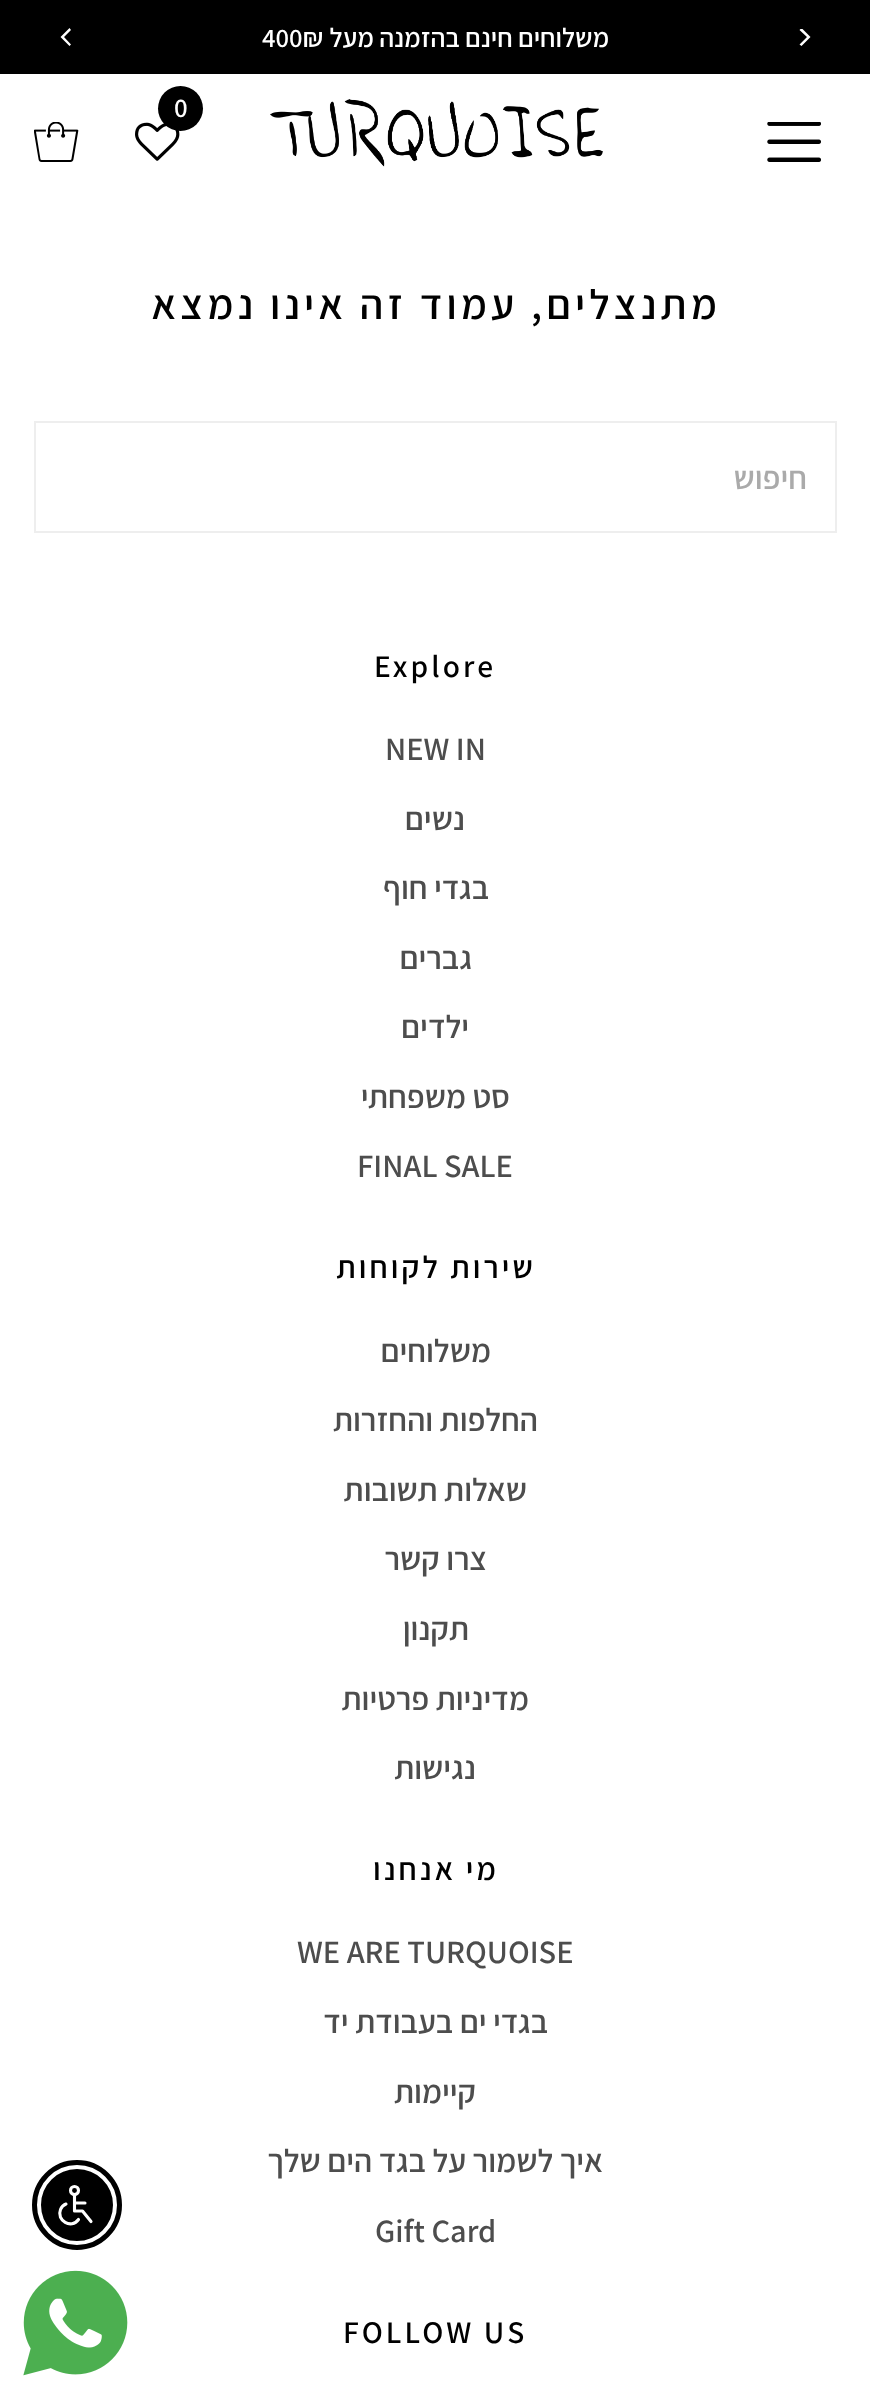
<!DOCTYPE html>
<meta charset="utf-8">
<style>body { margin: 0 } canvas { display: block }</style>
<canvas id="canvas" width="870" height="2398"></canvas>
<img id="img1" src="img_01.png" hidden>
<img id="img2" src="img_02.png" hidden>
<img id="img3" src="img_03.png" hidden>
<img id="img4" src="img_04.png" hidden>
<img id="img5" src="img_05.png" hidden>
<script>
window.onload = function () {
	const canvas = document.getElementById("canvas");
	const ctx = canvas.getContext("2d");
	ctx.miterLimit = 4;
	ctx.fontKerning = "normal";
	function txt(s, x, y) {
		ctx.fillText(s, x, y);
	}
	function fill(x, y, w, h) {
		ctx.fillRect(x, y, w, h);
	}
	function img(id, x, y, w, h) {
		ctx.drawImage(document.getElementById(id), x, y, w, h);
	}

	ctx.fillStyle = "#FFFFFF";
	fill(0, 0, 870, 2398);
	ctx.fillStyle = "#000000";
	fill(0, 0, 870, 74);
	ctx.save();
	ctx.beginPath();
	ctx.rect(794, 29, 18, 18);
	ctx.clip();
	ctx.fillStyle = "#FFFFFF";
	ctx.beginPath();
	ctx.moveTo(810.5, 37);
	ctx.lineTo(801.5, 28);
	ctx.lineTo(799.5, 30);
	ctx.lineTo(807, 37);
	ctx.lineTo(799.5, 44.5);
	ctx.lineTo(801.5, 46);
	ctx.closePath();
	ctx.fill();
	ctx.restore();
	ctx.fillStyle = "#FFFFFF";
	ctx.beginPath();
	ctx.moveTo(60.5, 37);
	ctx.lineTo(69.5, 46);
	ctx.lineTo(71, 44.5);
	ctx.lineTo(64, 37);
	ctx.lineTo(71, 30);
	ctx.lineTo(69.5, 28);
	ctx.closePath();
	ctx.fill();
	img("img1", 767, 122, 54, 40);
	img("img2", 270, 99, 333, 68);
	img("img3", 135, 122, 45, 39);
	ctx.fillStyle = "#000000";
	ctx.beginPath();
	ctx.arc(180.5, 108.5, 22.5, 0, Math.PI * 2);
	ctx.fill();
	img("img4", 34, 122, 45, 40);
	ctx.strokeStyle = "#EEEEEE";
	ctx.lineWidth = 2;
	ctx.strokeRect(35, 422, 801, 110);
	ctx.beginPath();
	ctx.arc(77, 2205, 42.5, 0, Math.PI * 2);
	ctx.strokeStyle = "#000000";
	ctx.lineWidth = 5;
	ctx.stroke();
	ctx.beginPath();
	ctx.arc(77, 2205, 35, 0, Math.PI * 2);
	ctx.fill();
	ctx.lineWidth = 2;
	ctx.stroke();
	ctx.beginPath();
	ctx.arc(74.5, 2190.5, 4, 0, Math.PI * 2);
	ctx.strokeStyle = "#FFFFFF";
	ctx.lineWidth = 3.1;
	ctx.stroke();
	ctx.beginPath();
	ctx.moveTo(74.5, 2194.5);
	ctx.lineTo(74.5, 2211);
	ctx.lineTo(82.5, 2211);
	ctx.lineTo(91, 2221.5);
	ctx.moveTo(74.5, 2203);
	ctx.lineTo(85, 2203);
	ctx.moveTo(66, 2204);
	ctx.bezierCurveTo(63.5, 2205, 61.5, 2207, 60.5, 2209.5);
	ctx.bezierCurveTo(56, 2220.5, 71.5, 2229.5, 78.5, 2219.5);
	ctx.lineCap = "round";
	ctx.lineJoin = "round";
	ctx.stroke();
	img("img5", 23, 2270, 105, 106);
	ctx.direction = "rtl";
	ctx.font = "600 26.75px Assistant";
	ctx.fillStyle = "#FFFFFF";
	txt("משלוחים חינם בהזמנה מעל", 609, 47);
	ctx.direction = "ltr";
	txt("400₪", 262, 47);
	ctx.font = "600 27px Assistant";
	txt("0", 174, 117);
	ctx.letterSpacing = "4.2px";
	ctx.direction = "rtl";
	ctx.font = "600 42px Assistant";
	ctx.fillStyle = "#000000";
	txt("מתנצלים, עמוד זה אינו נמצא", 721, 319);
	ctx.letterSpacing = "0px";
	ctx.font = "600 32.5px Assistant";
	ctx.fillStyle = "#AAAAAA";
	txt("חיפוש", 807, 489);
	ctx.letterSpacing = "3.1px";
	ctx.direction = "ltr";
	ctx.font = "600 31.5px Assistant";
	ctx.fillStyle = "#000000";
	txt("Explore", 374, 677);
	ctx.letterSpacing = "0px";
	ctx.font = "600 32.5px Assistant";
	ctx.fillStyle = "#4D4D4D";
	txt("NEW IN", 385, 760);
	ctx.direction = "rtl";
	txt("נשים", 465, 830);
	txt("בגדי חוף", 489, 899);
	txt("גברים", 472, 969);
	txt("ילדים", 469, 1038);
	txt("סט משפחתי", 510, 1108);
	ctx.direction = "ltr";
	txt("FINAL SALE", 357, 1177);
	ctx.letterSpacing = "3.1px";
	ctx.direction = "rtl";
	ctx.font = "600 31.5px Assistant";
	ctx.fillStyle = "#000000";
	txt("שירות לקוחות", 536, 1278);
	ctx.letterSpacing = "0px";
	ctx.font = "600 32.5px Assistant";
	ctx.fillStyle = "#4D4D4D";
	txt("משלוחים", 491, 1362);
	txt("החלפות והחזרות", 538, 1431);
	txt("שאלות תשובות", 527, 1501);
	txt("צרו קשר", 487, 1570);
	txt("תקנון", 469, 1640);
	txt("מדיניות פרטיות", 529, 1710);
	txt("נגישות", 476, 1779);
	ctx.letterSpacing = "3.1px";
	ctx.font = "600 31.5px Assistant";
	ctx.fillStyle = "#000000";
	txt("מי אנחנו", 499, 1880);
	ctx.letterSpacing = "0px";
	ctx.direction = "ltr";
	ctx.font = "600 32.5px Assistant";
	ctx.fillStyle = "#4D4D4D";
	txt("WE ARE TURQUOISE", 297, 1963);
	ctx.direction = "rtl";
	txt("בגדי ים בעבודת יד", 548, 2033);
	txt("קיימות", 476, 2103);
	txt("איך לשמור על בגד הים שלך", 603, 2172);
	ctx.direction = "ltr";
	txt("Gift Card", 375, 2242);
	ctx.letterSpacing = "3.1px";
	ctx.font = "600 31.5px Assistant";
	ctx.fillStyle = "#000000";
	txt("FOLLOW US", 343, 2343);
};
</script>
